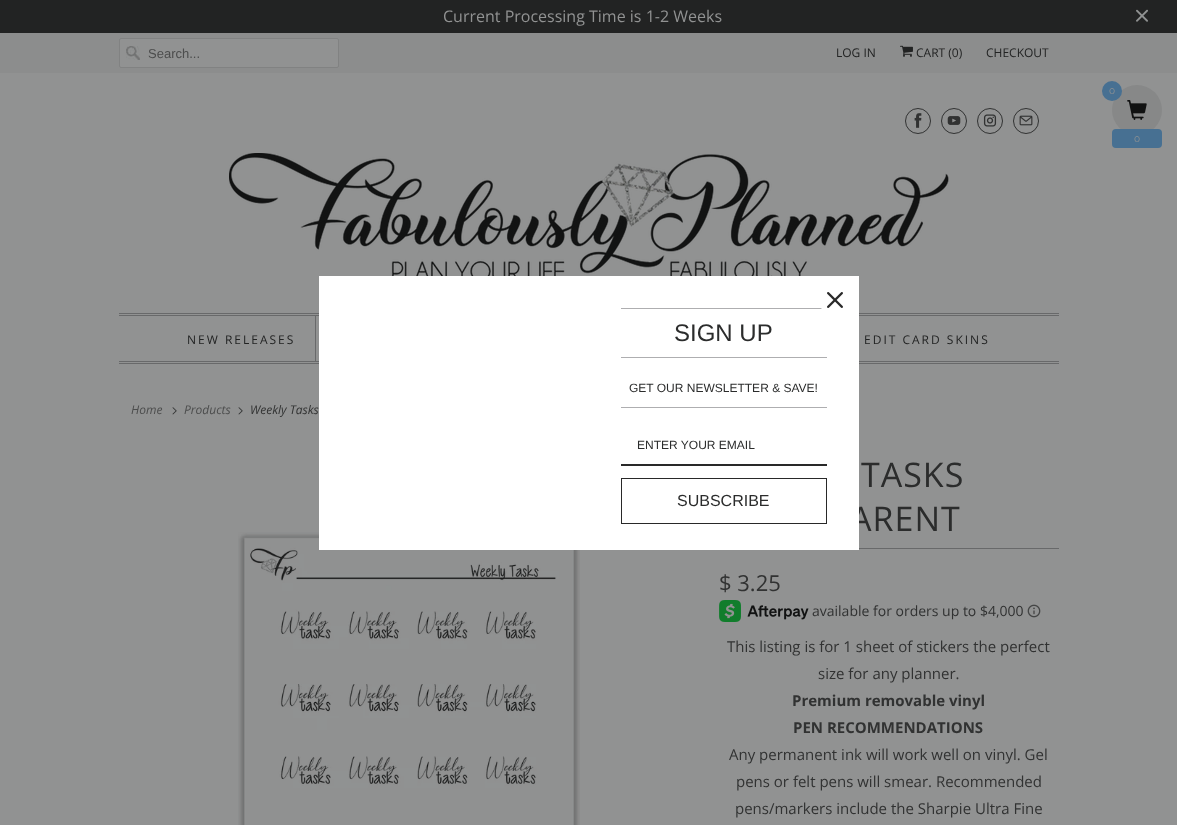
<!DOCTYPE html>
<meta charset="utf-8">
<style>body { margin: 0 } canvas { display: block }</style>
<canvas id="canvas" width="1177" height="825"></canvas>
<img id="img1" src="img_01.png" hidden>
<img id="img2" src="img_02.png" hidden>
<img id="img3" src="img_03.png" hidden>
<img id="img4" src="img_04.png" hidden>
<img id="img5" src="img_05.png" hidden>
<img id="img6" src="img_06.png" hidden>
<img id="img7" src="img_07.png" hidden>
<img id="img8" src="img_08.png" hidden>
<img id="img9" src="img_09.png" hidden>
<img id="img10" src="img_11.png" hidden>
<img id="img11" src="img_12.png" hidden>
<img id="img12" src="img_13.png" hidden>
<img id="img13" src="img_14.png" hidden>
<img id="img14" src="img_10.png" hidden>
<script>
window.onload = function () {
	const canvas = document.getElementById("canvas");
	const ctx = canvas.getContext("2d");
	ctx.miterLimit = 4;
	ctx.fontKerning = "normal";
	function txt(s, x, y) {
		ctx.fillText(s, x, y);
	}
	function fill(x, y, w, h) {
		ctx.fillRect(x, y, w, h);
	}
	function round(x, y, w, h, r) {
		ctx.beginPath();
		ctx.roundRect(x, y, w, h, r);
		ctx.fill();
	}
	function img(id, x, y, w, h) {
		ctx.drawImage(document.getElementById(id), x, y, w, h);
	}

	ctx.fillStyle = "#919292";
	fill(0, 0, 1177, 825);
	ctx.fillStyle = "#222323";
	fill(0, 0, 1177, 33);
	img("img1", 1136, 9, 12, 13);
	ctx.fillStyle = "#8C8D8D";
	fill(0, 33, 1177, 40);
	ctx.fillStyle = "#919292";
	round(119, 38, 220, 30, 2);
	img("img2", 126, 46, 14, 14);
	ctx.beginPath();
	ctx.roundRect(119.5, 38.5, 219, 29, 1.5);
	ctx.strokeStyle = "#818282";
	ctx.stroke();
	img("img3", 900, 45, 13, 12);
	ctx.beginPath();
	ctx.arc(918, 121, 12.5, 0, Math.PI * 2);
	ctx.strokeStyle = "#313232";
	ctx.stroke();
	img("img4", 914, 113, 8, 15);
	ctx.beginPath();
	ctx.arc(954, 121, 12.5, 0, Math.PI * 2);
	ctx.stroke();
	img("img5", 947, 116, 14, 9);
	ctx.beginPath();
	ctx.arc(990, 121, 12.5, 0, Math.PI * 2);
	ctx.stroke();
	img("img6", 983, 114, 14, 13);
	ctx.beginPath();
	ctx.arc(1026, 121, 12.5, 0, Math.PI * 2);
	ctx.stroke();
	img("img7", 1019, 115, 14, 11);
	img("img8", 229, 153, 720, 123);
	ctx.fillStyle = "#68696A";
	fill(119, 313, 940, 1);
	fill(119, 315, 940, 1);
	fill(119, 361, 940, 1);
	fill(119, 363, 940, 1);
	fill(315, 316, 1, 45);
	ctx.fillStyle = "#878888";
	ctx.beginPath();
	ctx.arc(1137, 110, 25, 0, Math.PI * 2);
	ctx.fill();
	ctx.fillStyle = "#477092";
	ctx.beginPath();
	ctx.arc(1112, 91, 10, 0, Math.PI * 2);
	ctx.fill();
	img("img9", 1127, 100, 20, 20);
	round(1112, 129, 50, 19, 4);
	img("img10", 172, 407, 5, 8);
	img("img10", 238, 407, 5, 8);
	img("img11", 238, 532, 342, 293);
	ctx.fillStyle = "#68696A";
	fill(859, 548, 200, 1);
	img("img12", 719, 600, 90, 22);
	img("img13", 1027, 604, 14, 14);
	ctx.font = "16px Open Sans";
	ctx.fillStyle = "#919292";
	txt("Current Processing Time is 1-2 Weeks", 443, 22);
	ctx.font = "13px Liberation Sans";
	ctx.fillStyle = "#4C4D4D";
	txt("Search...", 148, 58);
	ctx.font = "12px Open Sans";
	ctx.fillStyle = "#222323";
	txt("LOG IN", 836, 57);
	txt("CART (0)", 916, 57);
	txt("CHECKOUT", 986, 57);
	ctx.letterSpacing = "2px";
	txt("NEW RELEASES", 187, 344);
	txt("EDIT CARD SKINS", 864, 344);
	ctx.letterSpacing = "0px";
	ctx.font = "100 10px Raleway";
	ctx.fillStyle = "#919292";
	txt("0", 1109, 94);
	txt("0", 1134, 142);
	ctx.font = "italic 12px Open Sans";
	ctx.fillStyle = "#4C4D4D";
	txt("Home", 131, 414);
	txt("Products", 184, 414);
	ctx.fillStyle = "#313232";
	txt("Weekly Tasks", 250, 414);
	ctx.letterSpacing = "1px";
	ctx.font = "34px Open Sans";
	ctx.fillStyle = "#2B2C2C";
	txt("TASKS", 861, 487);
	txt("ARENT", 850, 531);
	ctx.fillStyle = "#FFFFFF";
	fill(319, 276, 540, 274);
	ctx.fillStyle = "#AEAEB0";
	fill(621, 308, 206, 1);
	ctx.fillStyle = "#FFFFFF";
	ctx.beginPath();
	ctx.arc(835, 300, 16, 0, Math.PI * 2);
	ctx.fill();
	img("img14", 827, 292, 16, 16);
	ctx.strokeStyle = "#292929";
	ctx.strokeRect(621.5, 478.5, 205, 45);
	ctx.letterSpacing = "0px";
	ctx.font = "16px Liberation Sans";
	ctx.fillStyle = "#2B2C2C";
	txt("SUBSCRIBE", 677, 506);
	ctx.font = "12px Liberation Sans";
	txt("ENTER YOUR EMAIL", 637, 449);
	ctx.fillStyle = "#292929";
	fill(621, 464, 206, 2);
	ctx.fillStyle = "#2B2C2C";
	txt("GET OUR NEWSLETTER & SAVE!", 629, 392);
	ctx.fillStyle = "#AEAEB0";
	fill(621, 407, 206, 1);
	ctx.font = "24px Liberation Sans";
	ctx.fillStyle = "#2B2C2C";
	txt("SIGN UP", 674, 341);
	ctx.fillStyle = "#AEAEB0";
	fill(621, 357, 206, 1);
	ctx.font = "22px Open Sans";
	ctx.fillStyle = "#313232";
	txt("$ 3.25", 719, 591);
	ctx.font = "14px Open Sans";
	txt("available for orders up to $4,000", 812, 616);
	ctx.font = "15px Open Sans";
	txt("This listing is for 1 sheet of stickers the perfect", 727, 652);
	txt("size for any planner.", 818, 679);
	ctx.font = "bold 15px Open Sans";
	txt("Premium removable vinyl", 792, 706);
	txt("PEN RECOMMENDATIONS", 793, 733);
	ctx.font = "15px Open Sans";
	txt("Any permanent ink will work well on vinyl. Gel", 729, 760);
	txt("pens or felt pens will smear. Recommended", 736, 787);
	txt("pens/markers include the Sharpie Ultra Fine", 735, 814);
};
</script>
